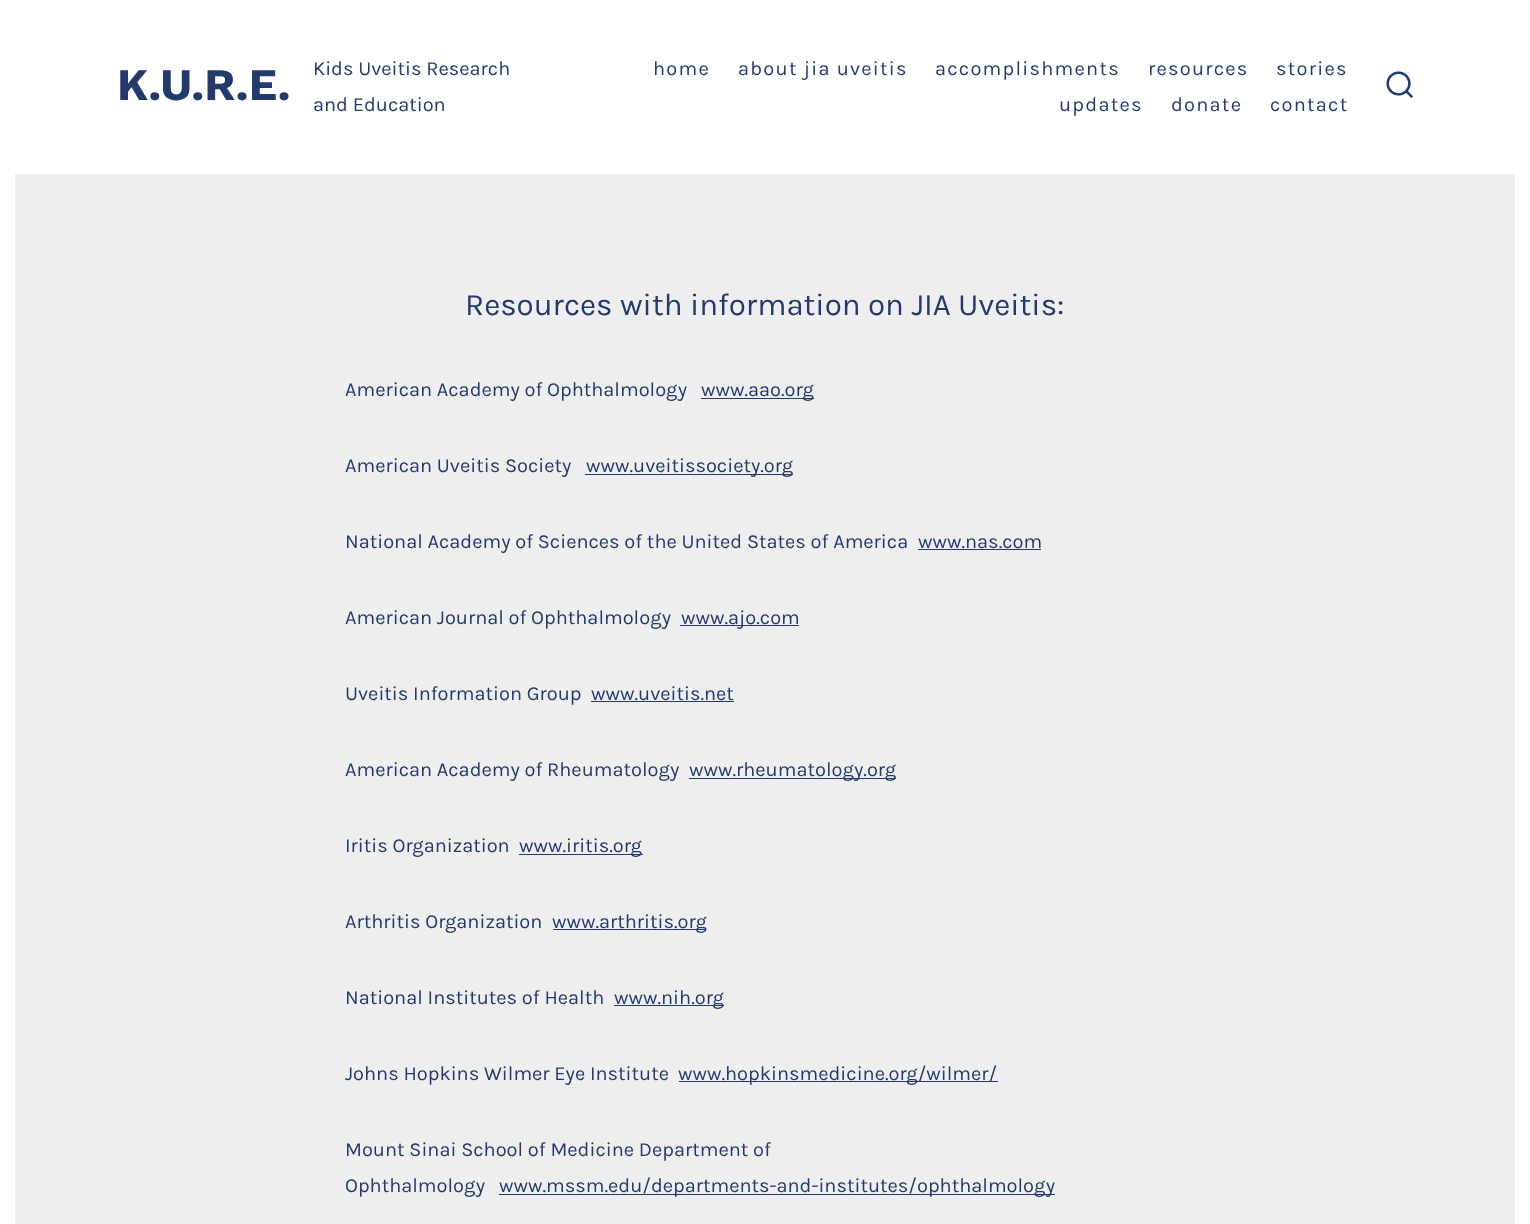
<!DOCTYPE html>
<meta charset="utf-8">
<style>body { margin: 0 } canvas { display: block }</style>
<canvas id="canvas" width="1530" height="1224"></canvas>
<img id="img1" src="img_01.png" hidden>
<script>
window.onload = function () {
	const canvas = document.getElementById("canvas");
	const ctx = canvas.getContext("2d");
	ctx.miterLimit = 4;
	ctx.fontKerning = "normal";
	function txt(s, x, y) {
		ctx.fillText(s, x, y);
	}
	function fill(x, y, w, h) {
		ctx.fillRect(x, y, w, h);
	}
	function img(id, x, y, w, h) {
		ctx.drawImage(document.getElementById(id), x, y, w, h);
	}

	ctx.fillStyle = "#EEEEEE";
	fill(0, 0, 1530, 1224);
	ctx.fillStyle = "#FFFFFF";
	fill(1515, 0, 15, 1224);
	fill(0, 0, 15, 1224);
	fill(15, 0, 1500, 174);
	img("img1", 1386, 71, 27, 27);
	ctx.fillStyle = "#233A6C";
	fill(701, 398, 113, 1);
	fill(585, 474, 208, 1);
	fill(918, 549, 123, 1);
	fill(680, 625, 119, 1);
	fill(591, 701, 143, 1);
	fill(689, 778, 207, 1);
	fill(519, 854, 124, 1);
	fill(553, 929, 153, 1);
	fill(614, 1005, 110, 1);
	fill(679, 1081, 319, 1);
	fill(499, 1194, 556, 1);
	ctx.font = "bold 45px Work Sans";
	txt("K.U.R.E.", 117, 100);
	ctx.font = "20px Karla";
	txt("Kids Uveitis Research", 313, 75);
	txt("and Education", 313, 111);
	ctx.letterSpacing = "1.25px";
	txt("home", 653, 75);
	txt("about jia uveitis", 738, 75);
	txt("accomplishments", 935, 75);
	txt("resources", 1148, 75);
	txt("stories", 1276, 75);
	txt("updates", 1059, 111);
	txt("donate", 1171, 111);
	txt("contact", 1270, 111);
	ctx.letterSpacing = "0px";
	ctx.font = "31.25px Karla";
	txt("Resources with information on JIA Uveitis:", 465, 315);
	ctx.font = "20px Karla";
	txt("American Academy of Ophthalmology", 345, 396);
	txt("www.aao.org", 701, 396);
	txt("American Uveitis Society", 345, 472);
	txt("www.uveitissociety.org", 586, 472);
	txt("National Academy of Sciences of the United States of America", 345, 548);
	txt("www.nas.com", 918, 548);
	txt("American Journal of Ophthalmology", 345, 624);
	txt("www.ajo.com", 681, 624);
	txt("Uveitis Information Group", 345, 700);
	txt("www.uveitis.net", 591, 700);
	txt("American Academy of Rheumatology", 345, 776);
	txt("www.rheumatology.org", 689, 776);
	txt("Iritis Organization", 345, 852);
	txt("www.iritis.org", 519, 852);
	txt("Arthritis Organization", 345, 928);
	txt("www.arthritis.org", 552, 928);
	txt("National Institutes of Health", 345, 1004);
	txt("www.nih.org", 614, 1004);
	txt("Johns Hopkins Wilmer Eye Institute", 345, 1080);
	txt("www.hopkinsmedicine.org/wilmer/", 678, 1080);
	txt("Mount Sinai School of Medicine Department of", 345, 1156);
	txt("Ophthalmology", 345, 1192);
	txt("www.mssm.edu/departments-and-institutes/ophthalmology", 499, 1192);
};
</script>
